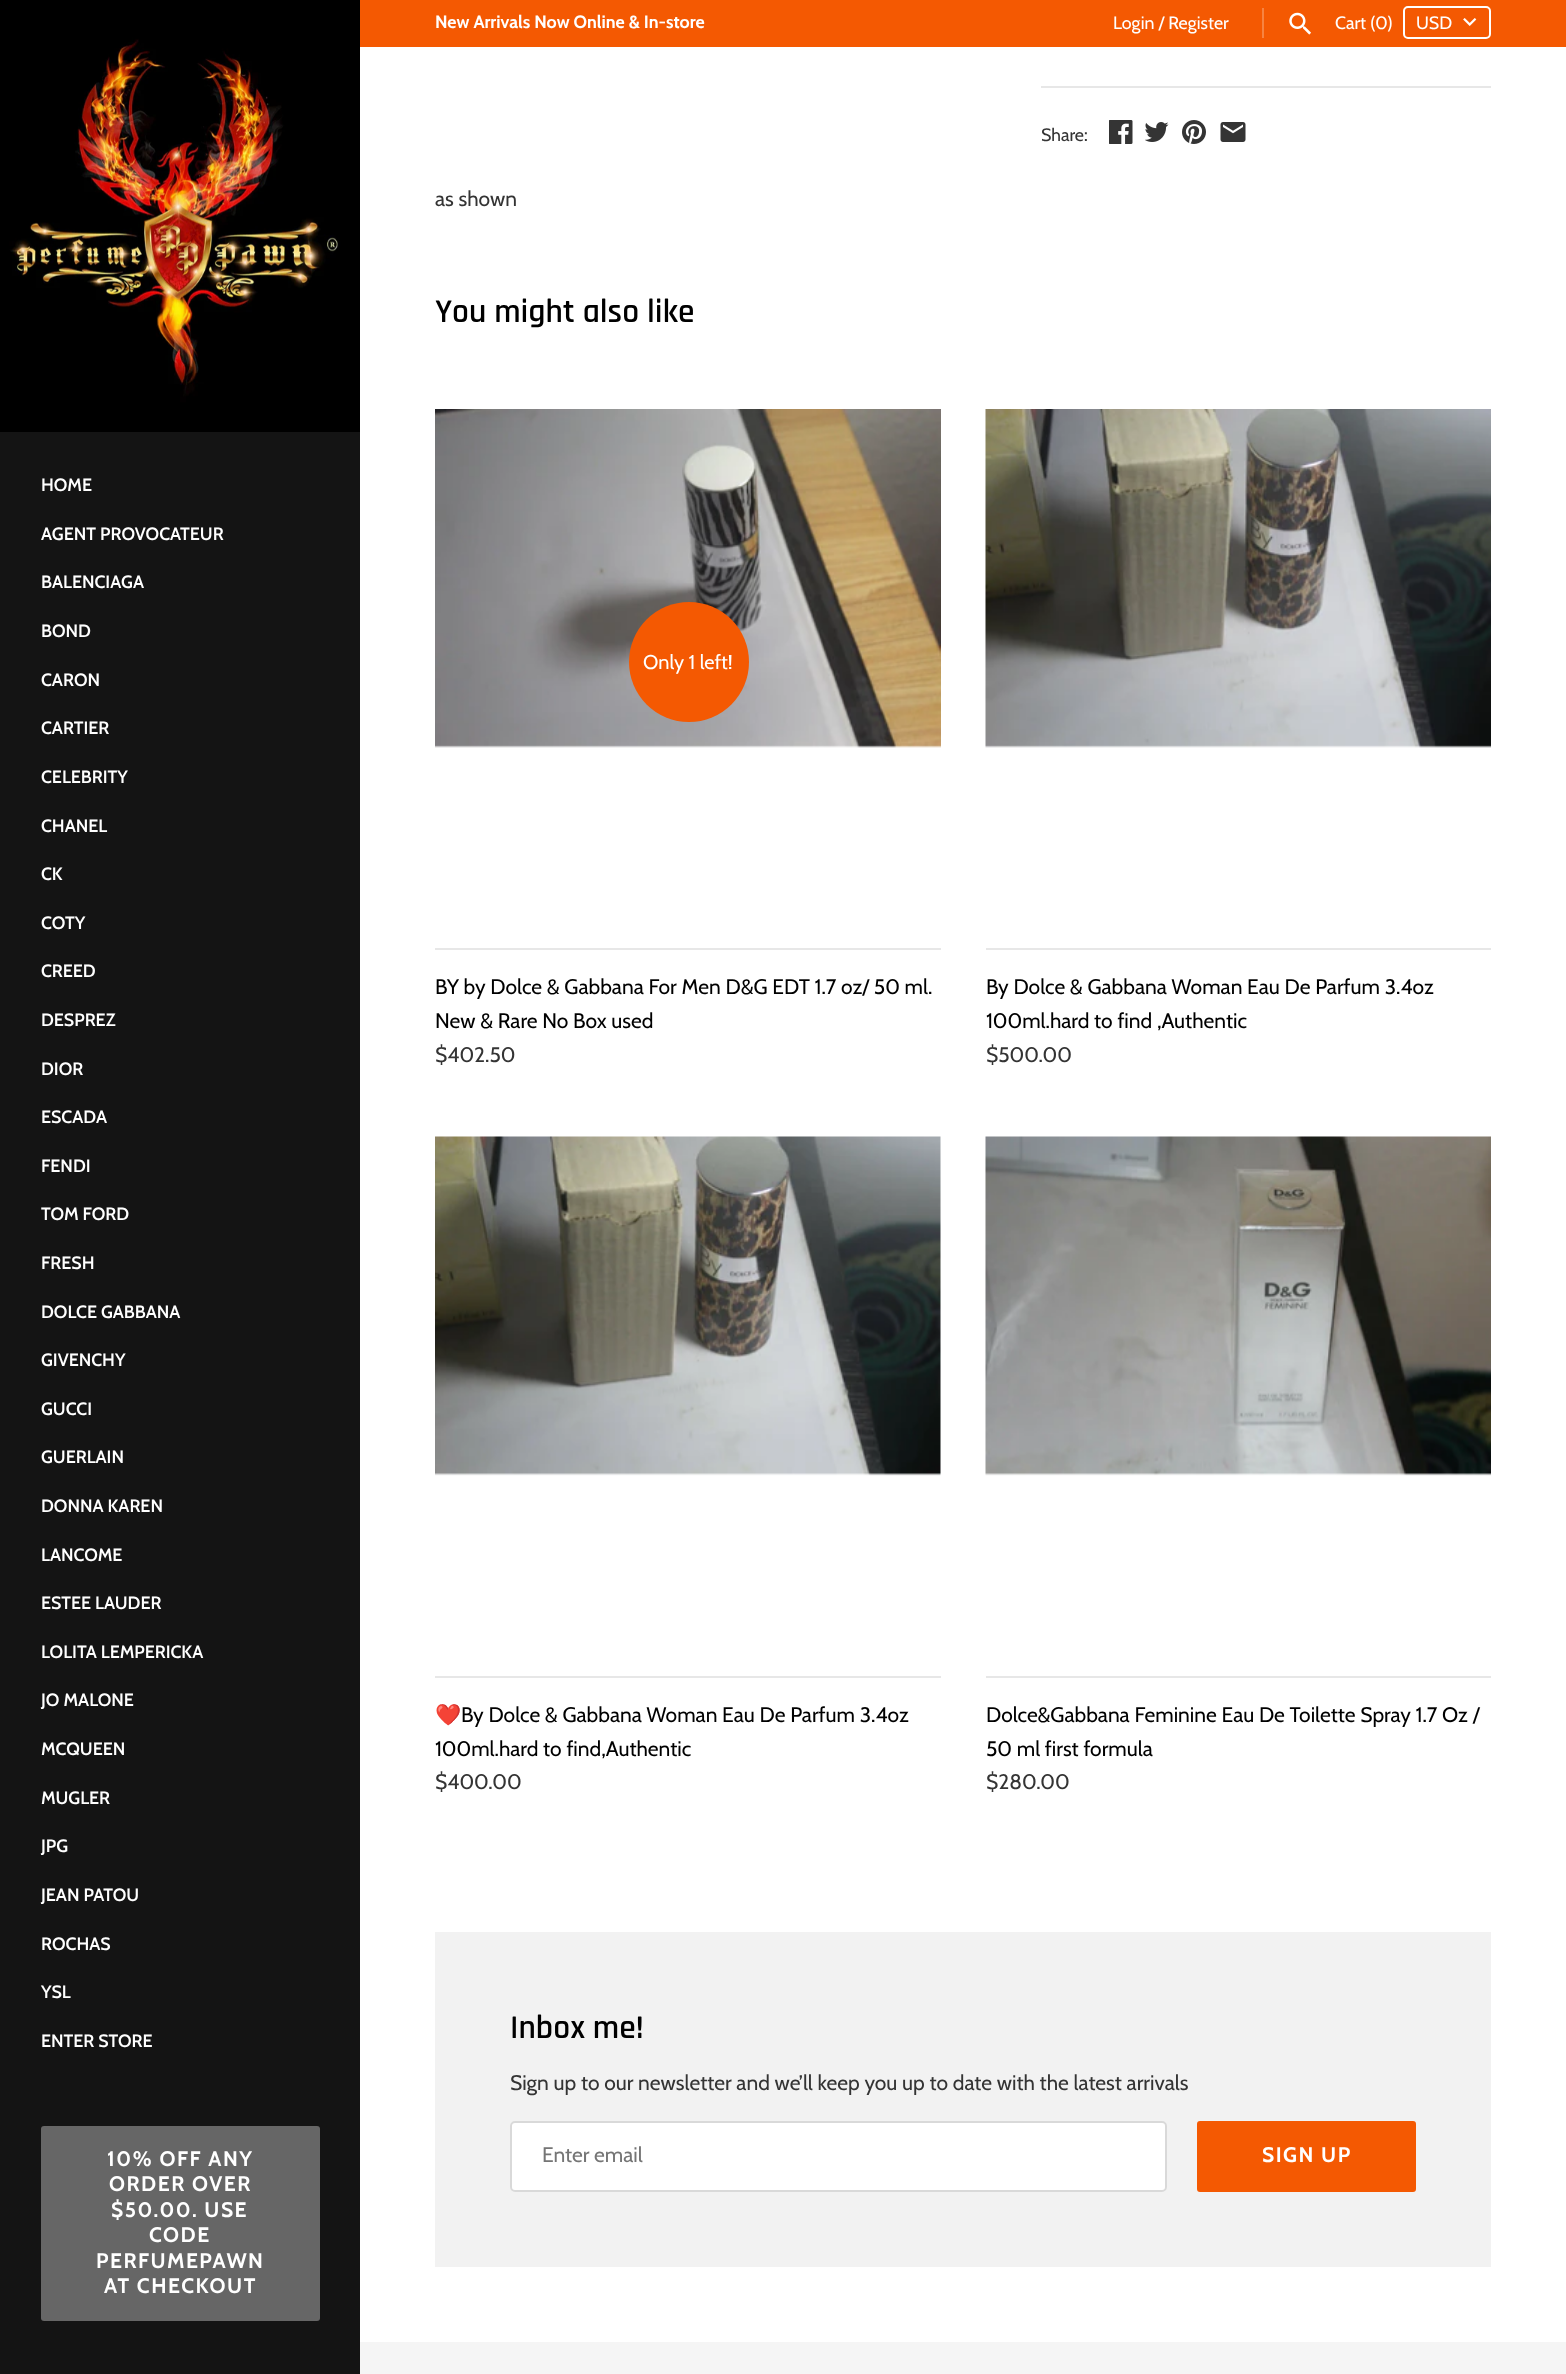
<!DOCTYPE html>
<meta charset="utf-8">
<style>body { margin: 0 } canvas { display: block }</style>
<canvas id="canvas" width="1566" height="2374"></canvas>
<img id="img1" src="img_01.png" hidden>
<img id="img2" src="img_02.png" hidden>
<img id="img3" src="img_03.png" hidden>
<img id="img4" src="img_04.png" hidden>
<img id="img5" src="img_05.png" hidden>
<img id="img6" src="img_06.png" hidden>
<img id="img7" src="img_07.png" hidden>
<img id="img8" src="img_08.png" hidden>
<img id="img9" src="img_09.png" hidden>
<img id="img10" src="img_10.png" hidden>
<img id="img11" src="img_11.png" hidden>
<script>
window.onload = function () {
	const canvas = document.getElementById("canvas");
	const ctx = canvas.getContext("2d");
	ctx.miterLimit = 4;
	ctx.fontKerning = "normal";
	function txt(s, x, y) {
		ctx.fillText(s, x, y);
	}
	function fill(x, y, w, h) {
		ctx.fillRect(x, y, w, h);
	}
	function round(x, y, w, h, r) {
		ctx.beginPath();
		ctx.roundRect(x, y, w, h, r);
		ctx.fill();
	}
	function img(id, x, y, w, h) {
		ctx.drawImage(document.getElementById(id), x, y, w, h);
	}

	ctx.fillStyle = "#FFFFFF";
	fill(0, 0, 1566, 2374);
	ctx.fillStyle = "#F45902";
	fill(360, 0, 1206, 47);
	ctx.fillStyle = "#F78341";
	fill(1262, 8, 2, 30);
	img("img1", 1289, 12, 22, 23);
	img("img2", 1463, 18, 14, 8);
	ctx.beginPath();
	ctx.roundRect(1404, 7, 86, 31, 4);
	ctx.strokeStyle = "#FFFFFF";
	ctx.lineWidth = 2;
	ctx.stroke();
	ctx.fillStyle = "#141414";
	fill(0, 432, 360, 1942);
	img("img3", 0, 0, 360, 432);
	ctx.fillStyle = "#666666";
	round(41, 2126, 279, 195, 3);
	ctx.fillStyle = "#E7E7E7";
	fill(1041, 86, 450, 2);
	img("img4", 1109, 120, 24, 24);
	img("img5", 1145, 122, 24, 20);
	img("img6", 1182, 120, 24, 24);
	img("img7", 1220, 122, 26, 20);
	img("img8", 435, 409, 506, 339);
	ctx.fillStyle = "#F45902";
	ctx.beginPath();
	ctx.arc(689, 662, 60, 0, Math.PI * 2);
	ctx.fill();
	ctx.fillStyle = "#E7E7E7";
	fill(435, 948, 506, 2);
	img("img9", 985, 409, 506, 339);
	fill(986, 948, 505, 2);
	img("img10", 435, 1136, 506, 340);
	fill(435, 1676, 506, 2);
	img("img11", 985, 1136, 506, 340);
	fill(986, 1676, 505, 2);
	ctx.fillStyle = "#F2F2F2";
	fill(435, 1932, 1056, 335);
	ctx.fillStyle = "#FFFFFF";
	round(510, 2121, 657, 71, 5);
	ctx.beginPath();
	ctx.roundRect(511, 2122, 655, 69, 4);
	ctx.strokeStyle = "rgba(0, 0, 0, 0.15)";
	ctx.stroke();
	ctx.fillStyle = "#F45902";
	ctx.beginPath();
	ctx.roundRect(1198, 2122, 217, 69, 2);
	ctx.fill();
	ctx.strokeStyle = "#F45902";
	ctx.stroke();
	ctx.fillStyle = "#F5F5F5";
	fill(360, 2342, 1206, 32);
	ctx.font = "bold 17.8px Cabin";
	ctx.fillStyle = "#FFFFFF";
	txt("New Arrivals Now Online & In-store", 435, 28);
	ctx.font = "17.8px Cabin";
	txt("Login / Register", 1113, 29);
	txt("Cart (0)", 1335, 29);
	txt("USD", 1416, 29);
	ctx.font = "600 17.8px Cabin";
	txt("HOME", 41, 491);
	txt("AGENT PROVOCATEUR", 41, 540);
	txt("BALENCIAGA", 41, 588);
	txt("BOND", 41, 637);
	txt("CARON", 41, 686);
	txt("CARTIER", 41, 734);
	txt("CELEBRITY", 41, 783);
	txt("CHANEL", 41, 832);
	txt("CK", 41, 880);
	txt("COTY", 41, 929);
	txt("CREED", 41, 977);
	txt("DESPREZ", 41, 1026);
	txt("DIOR", 41, 1075);
	txt("ESCADA", 41, 1123);
	txt("FENDI", 41, 1172);
	txt("TOM FORD", 41, 1220);
	txt("FRESH", 41, 1269);
	txt("DOLCE GABBANA", 41, 1318);
	txt("GIVENCHY", 41, 1366);
	txt("GUCCI", 41, 1415);
	txt("GUERLAIN", 41, 1463);
	txt("DONNA KAREN", 41, 1512);
	txt("LANCOME", 41, 1561);
	txt("ESTEE LAUDER", 41, 1609);
	txt("LOLITA LEMPERICKA", 41, 1658);
	txt("JO MALONE", 41, 1706);
	txt("MCQUEEN", 41, 1755);
	txt("MUGLER", 41, 1804);
	txt("JPG", 41, 1852);
	txt("JEAN PATOU", 41, 1901);
	txt("ROCHAS", 41, 1950);
	txt("YSL", 41, 1998);
	txt("ENTER STORE", 41, 2047);
	ctx.letterSpacing = "1.5px";
	ctx.font = "bold 21px Cabin";
	txt("10% OFF ANY", 107, 2166);
	txt("ORDER OVER", 109, 2191);
	txt("$50.00. USE", 111, 2217);
	txt("CODE", 149, 2242);
	txt("PERFUMEPAWN", 96, 2268);
	txt("AT CHECKOUT", 104, 2293);
	ctx.letterSpacing = "0px";
	ctx.font = "17.8px Cabin";
	ctx.fillStyle = "#343434";
	txt("Share:", 1041, 141);
	ctx.font = "21px Cabin";
	txt("as shown", 435, 206);
	ctx.font = "600 33.5px Rajdhani";
	ctx.fillStyle = "#000000";
	txt("You might also like", 435, 322);
	ctx.font = "20px Cabin";
	ctx.fillStyle = "#FFFFFF";
	txt("Only 1 left!", 643, 669);
	ctx.font = "21px Cabin";
	ctx.fillStyle = "#000000";
	txt("BY by Dolce & Gabbana For Men D&G EDT 1.7 oz/ 50 ml.", 435, 994);
	txt("New & Rare No Box used", 435, 1028);
	ctx.fillStyle = "#343434";
	txt("$402.50", 435, 1062);
	ctx.fillStyle = "#000000";
	txt("By Dolce & Gabbana Woman Eau De Parfum 3.4oz", 986, 994);
	txt("100ml.hard to find ,Authentic", 986, 1028);
	ctx.fillStyle = "#343434";
	txt("$500.00", 986, 1062);
	ctx.font = "21px Noto Color Emoji";
	ctx.fillStyle = "#000000";
	txt("❤️", 435, 1722);
	ctx.font = "21px Cabin";
	txt("By Dolce & Gabbana Woman Eau De Parfum 3.4oz", 461, 1722);
	txt("100ml.hard to find,Authentic", 435, 1756);
	ctx.fillStyle = "#343434";
	txt("$400.00", 435, 1789);
	ctx.fillStyle = "#000000";
	txt("Dolce&Gabbana Feminine Eau De Toilette Spray 1.7 Oz /", 986, 1722);
	txt("50 ml first formula", 986, 1756);
	ctx.fillStyle = "#343434";
	txt("$280.00", 986, 1789);
	ctx.font = "600 33.5px Rajdhani";
	ctx.fillStyle = "#000000";
	txt("Inbox me!", 510, 2038);
	ctx.font = "21px Cabin";
	ctx.fillStyle = "#343434";
	txt("Sign up to our newsletter and we’ll keep you up to date with the latest arrivals", 510, 2090);
	ctx.fillStyle = "#757575";
	txt("Enter email", 542, 2162);
	ctx.letterSpacing = "1.5px";
	ctx.font = "bold 21px Cabin";
	ctx.fillStyle = "#FFFFFF";
	txt("SIGN UP", 1262, 2162);
};
</script>
